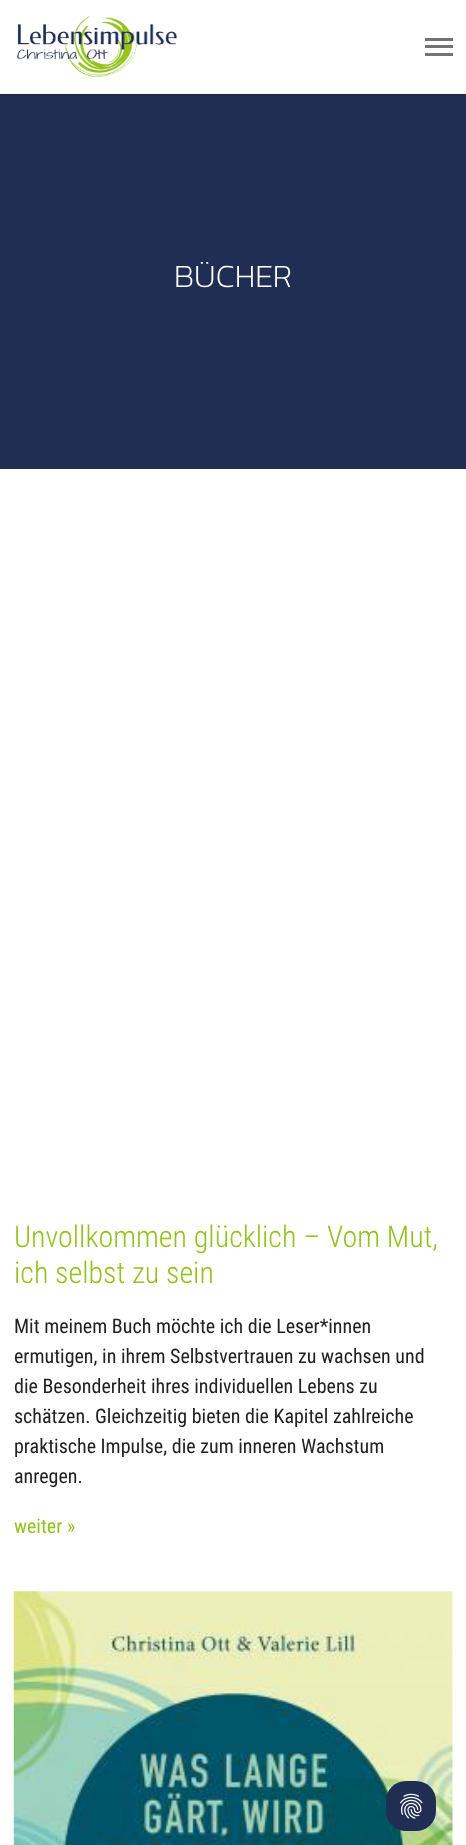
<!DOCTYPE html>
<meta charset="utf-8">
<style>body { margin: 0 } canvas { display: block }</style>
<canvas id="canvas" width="466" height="1845"></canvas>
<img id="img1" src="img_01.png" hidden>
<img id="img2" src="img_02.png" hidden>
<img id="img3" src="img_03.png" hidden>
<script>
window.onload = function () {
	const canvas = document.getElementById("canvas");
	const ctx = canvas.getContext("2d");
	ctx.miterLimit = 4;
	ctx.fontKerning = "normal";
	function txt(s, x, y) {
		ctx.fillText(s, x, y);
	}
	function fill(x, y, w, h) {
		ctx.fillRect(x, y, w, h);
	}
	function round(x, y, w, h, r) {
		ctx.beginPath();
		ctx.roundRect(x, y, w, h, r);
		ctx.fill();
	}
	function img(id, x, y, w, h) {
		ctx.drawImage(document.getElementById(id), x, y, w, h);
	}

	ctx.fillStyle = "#FFFFFF";
	fill(0, 0, 466, 1845);
	ctx.fillStyle = "#1B2747";
	fill(0, 94, 466, 1);
	img("img1", 17, 16, 161, 62);
	ctx.fillStyle = "#737373";
	fill(425, 45, 28, 3);
	fill(425, 38, 28, 3);
	fill(425, 53, 28, 3);
	ctx.fillStyle = "#202E53";
	fill(0, 95, 466, 374);
	img("img2", 13, 1591, 440, 254);
	round(386, 1781, 50, 50, 20);
	img("img3", 400, 1793, 23, 26);
	ctx.font = "200 32.5px Kanit";
	ctx.fillStyle = "#FFFFFF";
	txt("BÜCHER", 174, 287);
	ctx.font = "300 30px Roboto Condensed";
	ctx.fillStyle = "#94C11E";
	txt("Unvollkommen glücklich – Vom Mut,", 14, 1247);
	txt("ich selbst zu sein", 14, 1283);
	ctx.font = "20px Roboto Condensed";
	ctx.fillStyle = "#212121";
	txt("Mit meinem Buch möchte ich die Leser*innen", 14, 1333);
	txt("ermutigen, in ihrem Selbstvertrauen zu wachsen und", 14, 1363);
	txt("die Besonderheit ihres individuellen Lebens zu", 14, 1393);
	txt("schätzen. Gleichzeitig bieten die Kapitel zahlreiche", 14, 1423);
	txt("praktische Impulse, die zum inneren Wachstum", 14, 1453);
	txt("anregen.", 14, 1483);
	ctx.fillStyle = "#94C11E";
	txt("weiter »", 14, 1533);
};
</script>
